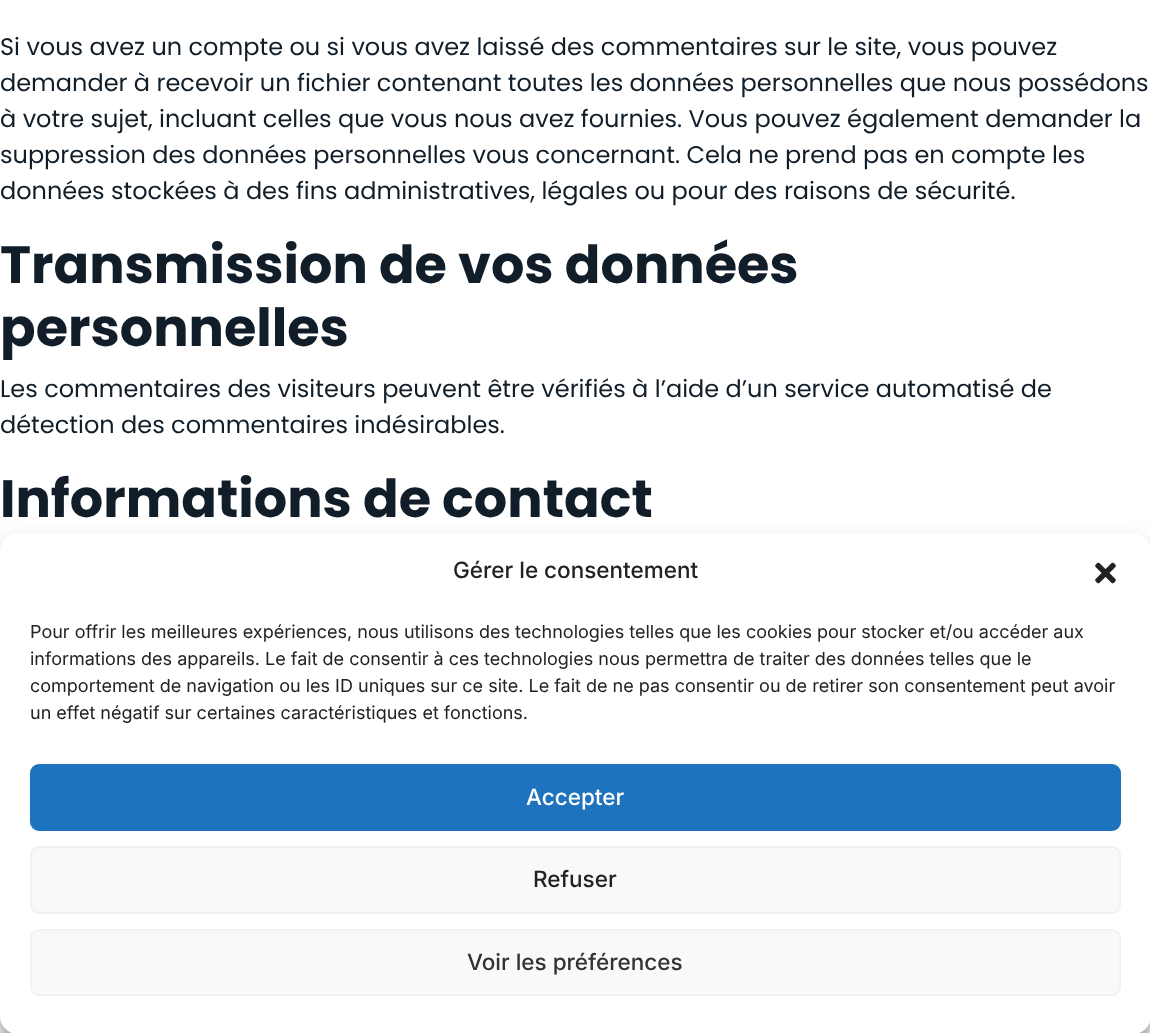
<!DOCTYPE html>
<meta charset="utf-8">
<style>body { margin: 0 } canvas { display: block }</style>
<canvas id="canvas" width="1150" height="1033"></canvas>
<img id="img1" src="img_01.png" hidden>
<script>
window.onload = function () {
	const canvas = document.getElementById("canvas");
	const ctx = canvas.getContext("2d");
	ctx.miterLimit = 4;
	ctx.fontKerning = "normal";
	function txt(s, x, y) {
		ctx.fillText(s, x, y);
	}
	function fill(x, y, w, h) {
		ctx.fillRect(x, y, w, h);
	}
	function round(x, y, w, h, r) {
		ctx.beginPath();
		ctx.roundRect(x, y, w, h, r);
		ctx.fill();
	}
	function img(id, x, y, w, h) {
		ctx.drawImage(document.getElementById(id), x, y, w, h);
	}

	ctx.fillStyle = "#FFFFFF";
	fill(0, 0, 1150, 1033);
	ctx.fillStyle = "rgba(0, 0, 0, 0.23)";
	ctx.filter = "blur(4.5px)";
	ctx.beginPath();
	ctx.roundRect(0, 542, 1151, 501, 18);
	ctx.fill();
	ctx.filter = "none";
	ctx.fillStyle = "rgba(0, 0, 0, 0.19)";
	ctx.filter = "blur(15px)";
	ctx.beginPath();
	ctx.roundRect(0, 548, 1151, 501, 18);
	ctx.fill();
	ctx.filter = "none";
	ctx.fillStyle = "#FFFFFF";
	round(0, 533, 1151, 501, 18);
	img("img1", 1095, 562, 21, 22);
	ctx.fillStyle = "#1E73BE";
	ctx.beginPath();
	ctx.roundRect(31, 765, 1089, 65, 8);
	ctx.fill();
	ctx.strokeStyle = "#1E73BE";
	ctx.lineWidth = 2;
	ctx.stroke();
	ctx.fillStyle = "#F9F9F9";
	ctx.beginPath();
	ctx.roundRect(31, 847, 1089, 66, 8);
	ctx.fill();
	ctx.strokeStyle = "#F2F2F2";
	ctx.stroke();
	ctx.beginPath();
	ctx.roundRect(31, 930, 1089, 65, 8);
	ctx.fill();
	ctx.stroke();
	ctx.font = "24px Poppins";
	ctx.fillStyle = "#111D28";
	txt("Si vous avez un compte ou si vous avez laissé des commentaires sur le site, vous pouvez", 0, 55);
	txt("demander à recevoir un fichier contenant toutes les données personnelles que nous possédons", 0, 91);
	txt("à votre sujet, incluant celles que vous nous avez fournies. Vous pouvez également demander la", 0, 127);
	txt("suppression des données personnelles vous concernant. Cela ne prend pas en compte les", 0, 163);
	txt("données stockées à des fins administratives, légales ou pour des raisons de sécurité.", 0, 199);
	ctx.font = "bold 52.5px Poppins";
	txt("Transmission de vos données", 0, 283);
	txt("personnelles", 0, 346);
	ctx.font = "24px Poppins";
	txt("Les commentaires des visiteurs peuvent être vérifiés à l’aide d’un service automatisé de", 0, 397);
	txt("détection des commentaires indésirables.", 0, 433);
	ctx.font = "bold 52.5px Poppins";
	txt("Informations de contact", 0, 517);
	ctx.font = "500 22.5px Inter";
	ctx.fillStyle = "#222222";
	txt("Gérer le consentement", 453, 578);
	ctx.font = "18px Inter";
	txt("Pour offrir les meilleures expériences, nous utilisons des technologies telles que les cookies pour stocker et/ou accéder aux", 30, 638);
	txt("informations des appareils. Le fait de consentir à ces technologies nous permettra de traiter des données telles que le", 30, 665);
	txt("comportement de navigation ou les ID uniques sur ce site. Le fait de ne pas consentir ou de retirer son consentement peut avoir", 30, 692);
	txt("un effet négatif sur certaines caractéristiques et fonctions.", 30, 719);
	ctx.font = "500 22.5px Inter";
	ctx.fillStyle = "#FFFFFF";
	txt("Accepter", 526, 805);
	ctx.fillStyle = "#222222";
	txt("Refuser", 533, 887);
	ctx.fillStyle = "#333333";
	txt("Voir les préférences", 467, 970);
};
</script>
